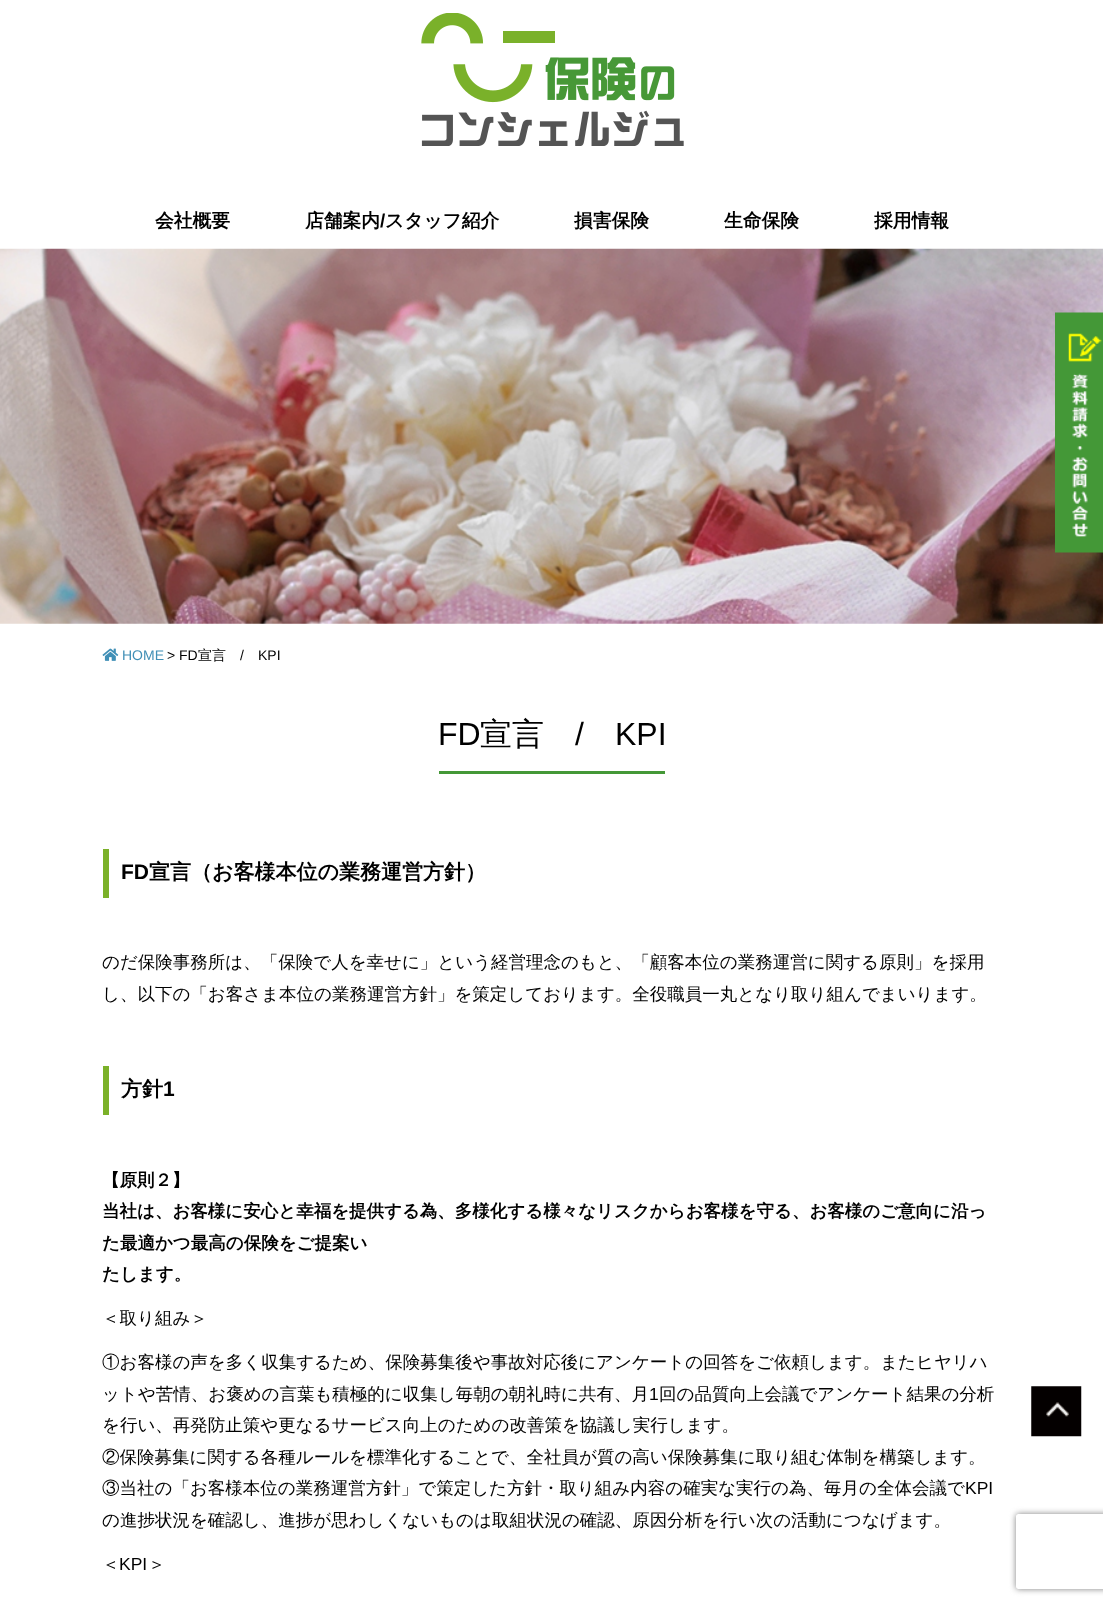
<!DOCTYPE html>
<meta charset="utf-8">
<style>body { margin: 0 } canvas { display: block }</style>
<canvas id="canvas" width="1103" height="1606"></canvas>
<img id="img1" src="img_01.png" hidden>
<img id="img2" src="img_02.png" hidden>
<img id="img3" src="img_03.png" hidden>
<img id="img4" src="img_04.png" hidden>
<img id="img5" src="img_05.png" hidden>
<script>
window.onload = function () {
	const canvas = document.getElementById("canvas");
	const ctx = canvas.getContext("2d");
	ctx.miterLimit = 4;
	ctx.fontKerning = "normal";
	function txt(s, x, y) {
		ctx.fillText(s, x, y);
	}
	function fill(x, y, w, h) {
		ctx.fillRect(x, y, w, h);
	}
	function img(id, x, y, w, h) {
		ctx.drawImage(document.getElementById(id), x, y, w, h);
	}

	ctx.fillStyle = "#FFFFFF";
	fill(0, 0, 1103, 1606);
	img("img1", 421, 13, 263, 133);
	img("img2", 0, 248, 1103, 376);
	img("img3", 1055, 312, 48, 241);
	img("img4", 102, 648, 17, 13);
	ctx.fillStyle = "#449837";
	fill(439, 771, 226, 3);
	ctx.fillStyle = "#7BB129";
	fill(103, 849, 6, 49);
	fill(103, 1066, 6, 49);
	img("img5", 1031, 1386, 51, 51);
	ctx.save();
	ctx.beginPath();
	ctx.moveTo(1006, 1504);
	ctx.lineTo(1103, 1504);
	ctx.lineTo(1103, 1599);
	ctx.lineTo(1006, 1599);
	ctx.closePath();
	ctx.moveTo(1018.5, 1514);
	ctx.lineTo(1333.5, 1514);
	ctx.bezierCurveTo(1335, 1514, 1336, 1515, 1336, 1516.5);
	ctx.lineTo(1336, 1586.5);
	ctx.bezierCurveTo(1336, 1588, 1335, 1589, 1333.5, 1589);
	ctx.lineTo(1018.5, 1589);
	ctx.bezierCurveTo(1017, 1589, 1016, 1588, 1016, 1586.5);
	ctx.lineTo(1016, 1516.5);
	ctx.bezierCurveTo(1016, 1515, 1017, 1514, 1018.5, 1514);
	ctx.closePath();
	ctx.clip("evenodd");
	ctx.fillStyle = "#808080";
	ctx.filter = "blur(3px)";
	ctx.beginPath();
	ctx.roundRect(1016, 1514, 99, 75, 2.5);
	ctx.fill();
	ctx.filter = "none";
	ctx.restore();
	ctx.font = "bold 18.75px WenQuanYi Zen Hei";
	ctx.fillStyle = "#000000";
	txt("会社概要", 155, 227);
	txt("店舗案内", 305, 227);
	ctx.font = "bold 18.75px Liberation Sans";
	txt("/", 380, 227);
	ctx.font = "bold 18.75px WenQuanYi Zen Hei";
	txt("スタッフ紹介", 385, 227);
	txt("損害保険", 574, 227);
	txt("生命保険", 724, 227);
	txt("採用情報", 874, 227);
	ctx.font = "14px Liberation Sans";
	ctx.fillStyle = "#408FB6";
	txt("HOME", 122, 660);
	ctx.fillStyle = "#000000";
	txt("> FD", 167, 660);
	ctx.font = "500 14px WenQuanYi Zen Hei";
	txt("宣言", 198, 660);
	ctx.font = "14px Liberation Sans";
	txt("/", 240, 660);
	txt("KPI", 258, 660);
	ctx.font = "32px Liberation Sans";
	txt("FD", 438, 745);
	ctx.font = "500 32px WenQuanYi Zen Hei";
	txt("宣言", 480, 745);
	ctx.font = "32px Liberation Sans";
	txt("/", 575, 745);
	txt("KPI", 615, 745);
	ctx.font = "bold 21px Liberation Sans";
	txt("FD", 121, 879);
	ctx.font = "bold 21px WenQuanYi Zen Hei";
	txt("宣言（お客様本位の業務運営方針）", 149, 879);
	ctx.font = "500 17.5px WenQuanYi Zen Hei";
	txt("のだ保険事務所は、「保険で人を幸せに」という経営理念のもと、「顧客本位の業務運営に関する原則」を採用", 102, 968);
	txt("し、以下の「お客さま本位の業務運営方針」を策定しております。全役職員一丸となり取り組んでまいります。", 102, 1000);
	ctx.font = "bold 21px WenQuanYi Zen Hei";
	txt("方針", 121, 1096);
	ctx.font = "bold 21px Liberation Sans";
	txt("1", 163, 1096);
	ctx.font = "bold 17.5px WenQuanYi Zen Hei";
	txt("【原則２】", 102, 1186);
	txt("当社は、お客様に安心と幸福を提供する為、多様化する様々なリスクからお客様を守る、お客様のご意向に沿っ", 102, 1217);
	txt("た最適かつ最高の保険をご提案い", 102, 1249);
	txt("たします。", 102, 1280);
	ctx.font = "500 17.5px WenQuanYi Zen Hei";
	txt("＜取り組み＞", 102, 1324);
	txt("①お客様の声を多く収集するため、保険募集後や事故対応後にアンケートの回答をご依頼します。またヒヤリハ", 102, 1368);
	txt("ットや苦情、お褒めの言葉も積極的に収集し毎朝の朝礼時に共有、月", 102, 1400);
	ctx.font = "17.5px Liberation Sans";
	txt("1", 649, 1400);
	ctx.font = "500 17.5px WenQuanYi Zen Hei";
	txt("回の品質向上会議でアンケート結果の分析", 659, 1400);
	txt("を行い、再発防止策や更なるサービス向上のための改善策を協議し実行します。", 102, 1431);
	txt("②保険募集に関する各種ルールを標準化することで、全社員が質の高い保険募集に取り組む体制を構築します。", 102, 1463);
	txt("③当社の「お客様本位の業務運営方針」で策定した方針・取り組み内容の確実な実行の為、毎月の全体会議で", 102, 1494);
	ctx.font = "17.5px Liberation Sans";
	txt("KPI", 965, 1494);
	ctx.font = "500 17.5px WenQuanYi Zen Hei";
	txt("の進捗状況を確認し、進捗が思わしくないものは取組状況の確認、原因分析を行い次の活動につなげます。", 102, 1526);
	txt("＜", 102, 1570);
	ctx.font = "17.5px Liberation Sans";
	txt("KPI", 119, 1570);
	ctx.font = "500 17.5px WenQuanYi Zen Hei";
	txt("＞", 148, 1570);
};
</script>
